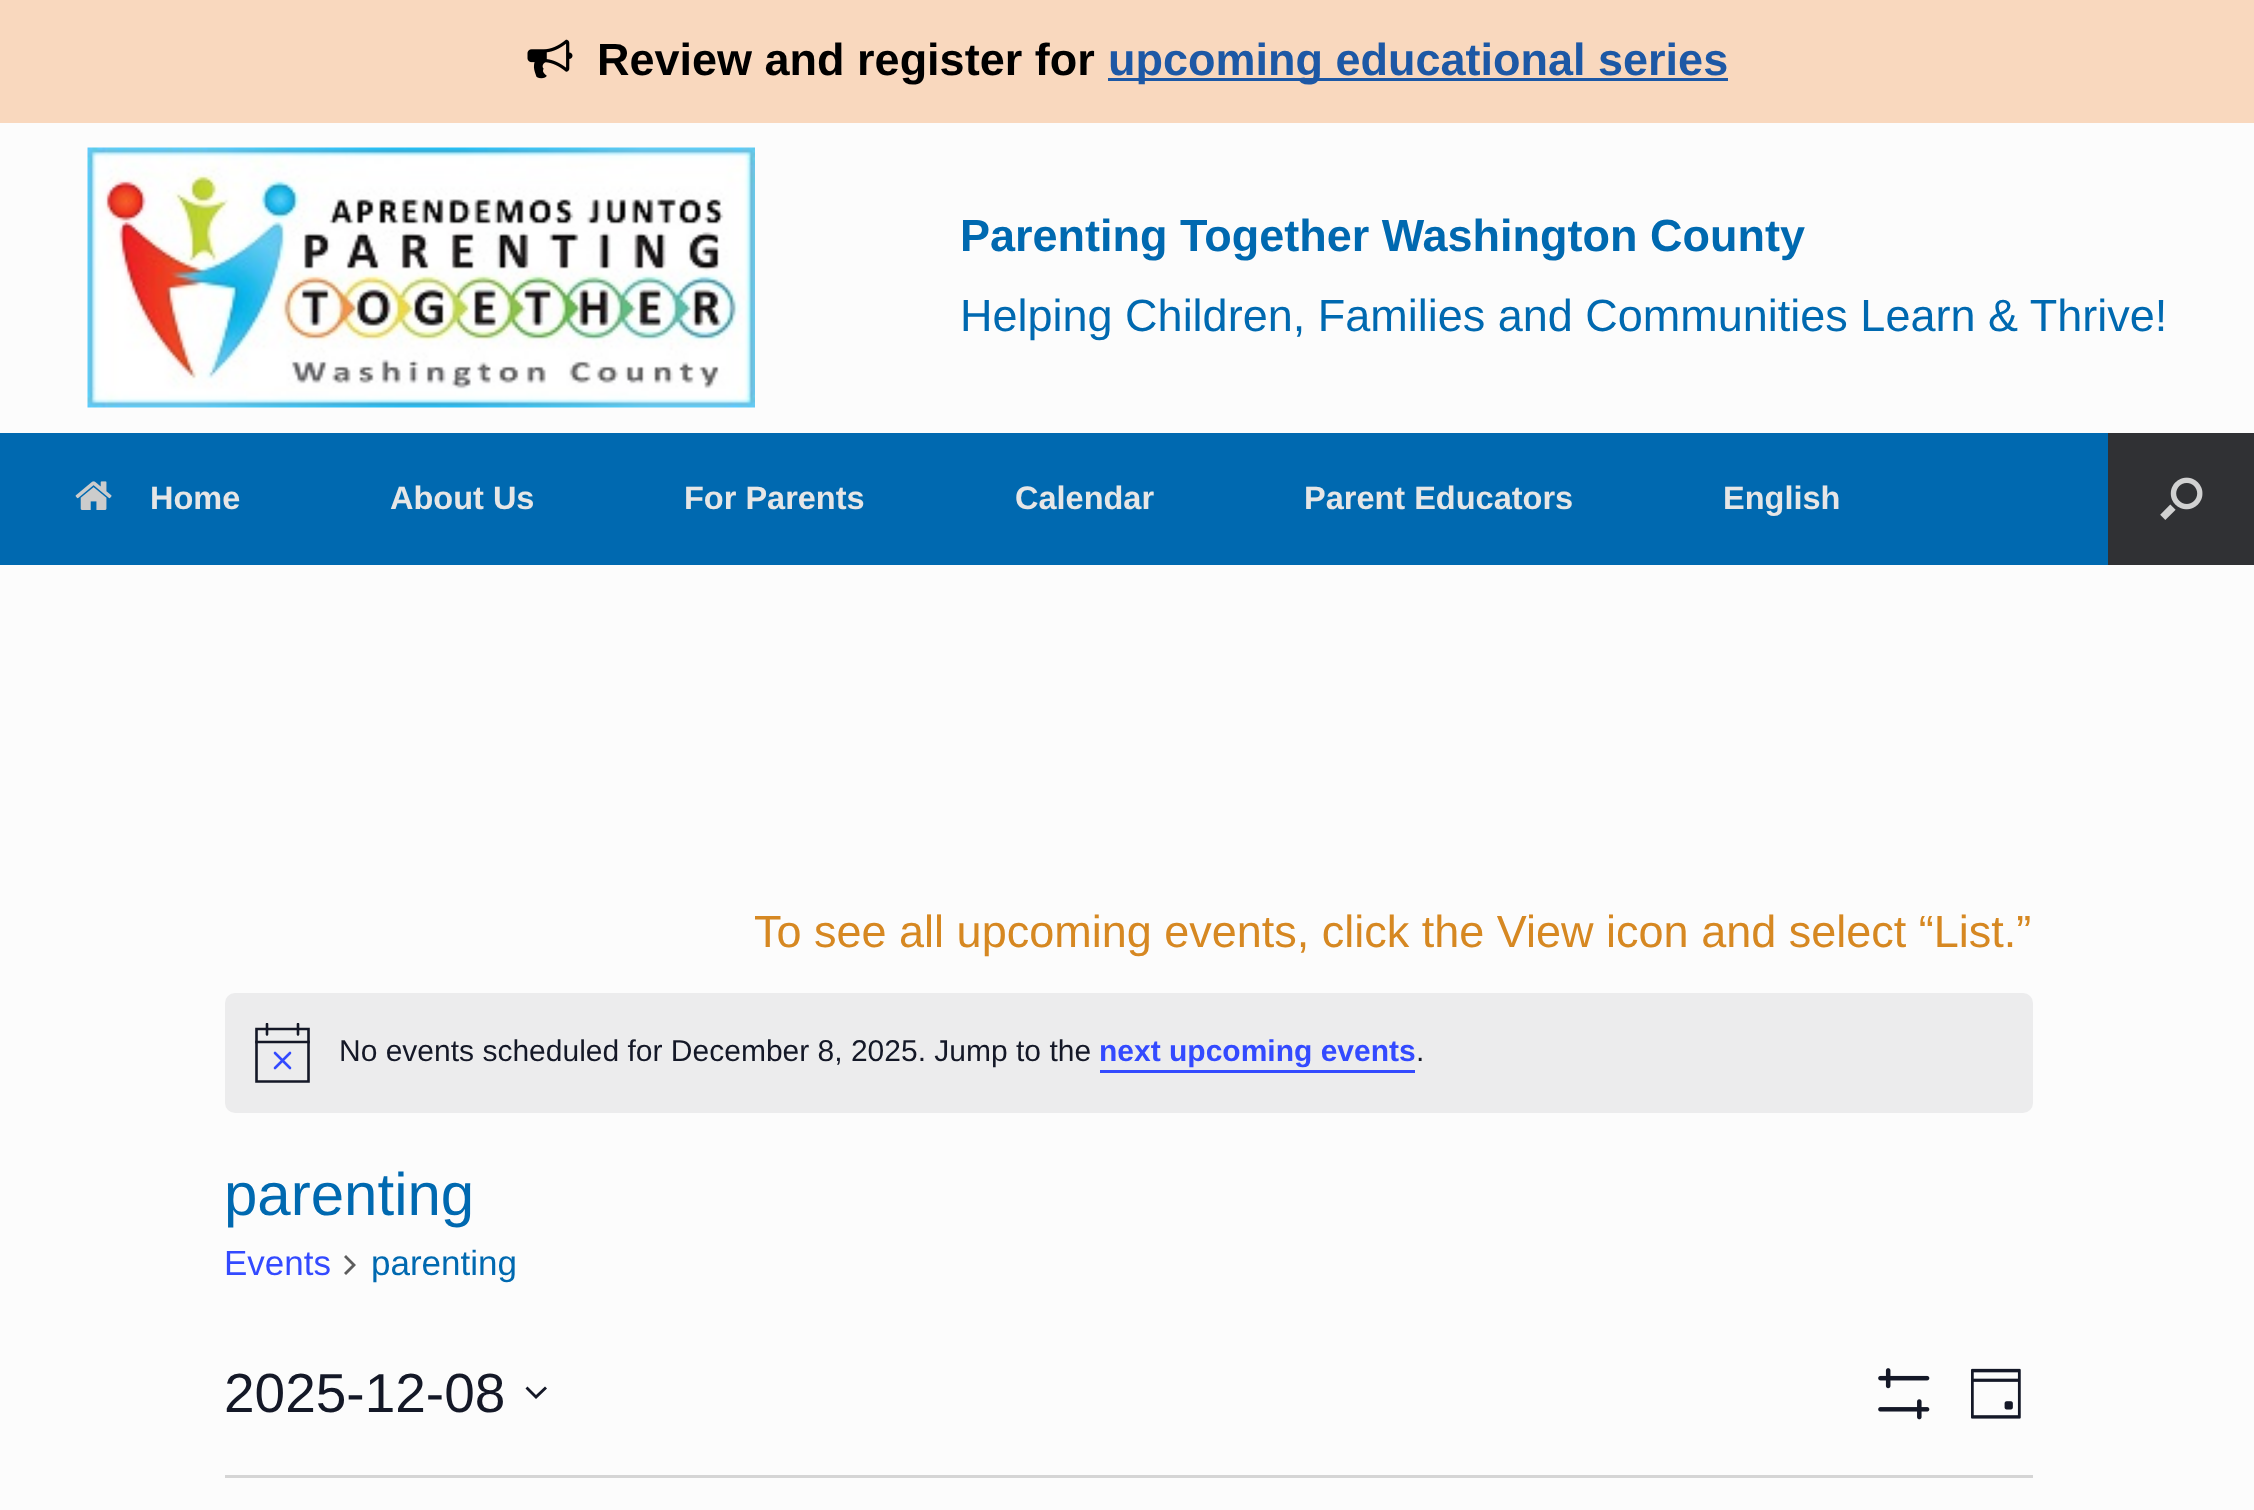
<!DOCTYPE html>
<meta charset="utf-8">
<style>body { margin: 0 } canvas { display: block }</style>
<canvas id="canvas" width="2254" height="1510"></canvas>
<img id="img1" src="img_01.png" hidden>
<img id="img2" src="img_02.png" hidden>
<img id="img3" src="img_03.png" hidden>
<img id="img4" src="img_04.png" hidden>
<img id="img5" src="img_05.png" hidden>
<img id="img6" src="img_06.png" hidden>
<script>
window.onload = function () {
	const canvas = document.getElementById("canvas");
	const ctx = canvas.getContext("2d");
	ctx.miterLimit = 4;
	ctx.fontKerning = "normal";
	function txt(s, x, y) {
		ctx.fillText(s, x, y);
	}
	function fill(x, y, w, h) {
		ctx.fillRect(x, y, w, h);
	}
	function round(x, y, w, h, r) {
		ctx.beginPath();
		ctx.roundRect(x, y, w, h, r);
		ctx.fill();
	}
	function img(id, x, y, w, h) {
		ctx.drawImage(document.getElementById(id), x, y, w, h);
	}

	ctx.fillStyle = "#FCFCFC";
	fill(0, 0, 2254, 1510);
	ctx.fillStyle = "#F9D8BE";
	fill(0, 0, 2254, 123);
	img("img1", 527, 39, 46, 40);
	ctx.fillStyle = "#1D58A5";
	fill(1108, 78, 620, 3);
	img("img2", 87, 147, 668, 261);
	ctx.fillStyle = "#0069B0";
	fill(0, 433, 2108, 132);
	img("img3", 75, 481, 37, 29);
	ctx.fillStyle = "#303134";
	fill(2108, 433, 146, 132);
	img("img4", 2160, 477, 43, 43);
	ctx.fillStyle = "#ECECED";
	round(225, 993, 1808, 120, 10);
	ctx.beginPath();
	ctx.moveTo(256.5, 1029);
	ctx.lineTo(308.5, 1029);
	ctx.lineTo(308.5, 1081.5);
	ctx.lineTo(256.5, 1081.5);
	ctx.closePath();
	ctx.strokeStyle = "#141827";
	ctx.lineWidth = 2.6;
	ctx.stroke();
	ctx.beginPath();
	ctx.moveTo(275, 1053);
	ctx.lineTo(290, 1068);
	ctx.moveTo(290, 1053);
	ctx.lineTo(275, 1068);
	ctx.strokeStyle = "#334AFF";
	ctx.lineCap = "round";
	ctx.stroke();
	ctx.save();
	ctx.beginPath();
	ctx.rect(255, 1023, 55, 60);
	ctx.clip();
	ctx.beginPath();
	ctx.moveTo(267, 1024);
	ctx.lineTo(267, 1034.5);
	ctx.moveTo(298, 1024);
	ctx.lineTo(298, 1034.5);
	ctx.strokeStyle = "#141827";
	ctx.stroke();
	ctx.restore();
	ctx.beginPath();
	ctx.moveTo(256.5, 1042);
	ctx.lineTo(308.5, 1042);
	ctx.strokeStyle = "#141827";
	ctx.lineCap = "square";
	ctx.stroke();
	ctx.fillStyle = "#334AFF";
	fill(1100, 1070, 315, 3);
	ctx.fillStyle = "#5D5D5D";
	ctx.beginPath();
	ctx.moveTo(344, 1257);
	ctx.lineTo(346, 1255);
	ctx.lineTo(356, 1265);
	ctx.lineTo(346, 1275);
	ctx.lineTo(344, 1273);
	ctx.lineTo(352, 1265);
	ctx.closePath();
	ctx.fill();
	ctx.fillStyle = "#141827";
	ctx.beginPath();
	ctx.moveTo(527.5, 1386.5);
	ctx.lineTo(536, 1395);
	ctx.lineTo(545, 1386.5);
	ctx.lineTo(547, 1388.5);
	ctx.lineTo(536, 1399);
	ctx.lineTo(525.5, 1388.5);
	ctx.closePath();
	ctx.fill("evenodd");
	img("img5", 1878, 1368, 52, 52);
	img("img6", 1971, 1368, 50, 51);
	ctx.fillStyle = "#D5D5D5";
	fill(225, 1475, 1808, 3);
	ctx.font = "bold 45px Liberation Sans";
	ctx.fillStyle = "#000000";
	txt("Review and register for", 597, 75);
	ctx.fillStyle = "#1D58A5";
	txt("upcoming educational series", 1108, 75);
	ctx.fillStyle = "#0069B0";
	txt("Parenting Together Washington County", 960, 251);
	ctx.font = "45px Liberation Sans";
	txt("Helping Children, Families and Communities Learn & Thrive!", 960, 331);
	ctx.font = "bold 32.5px Liberation Sans";
	ctx.fillStyle = "#E6E6E6";
	txt("Home", 150, 509);
	txt("About Us", 390, 509);
	txt("For Parents", 684, 509);
	txt("Calendar", 1015, 509);
	txt("Parent Educators", 1304, 509);
	txt("English", 1723, 509);
	ctx.font = "45px Liberation Sans";
	ctx.fillStyle = "#D68822";
	txt("To see all upcoming events, click the View icon and select “List.”", 754, 947);
	ctx.font = "30px Liberation Sans";
	ctx.fillStyle = "#141827";
	txt("No events scheduled for December 8, 2025. Jump to the", 339, 1061);
	ctx.font = "bold 30px Liberation Sans";
	ctx.fillStyle = "#334AFF";
	txt("next upcoming events", 1099, 1061);
	ctx.font = "30px Liberation Sans";
	ctx.fillStyle = "#141827";
	txt(".", 1416, 1061);
	ctx.font = "60px Liberation Sans";
	ctx.fillStyle = "#0069B0";
	txt("parenting", 224, 1215);
	ctx.font = "35px Liberation Sans";
	ctx.fillStyle = "#334AFF";
	txt("Events", 224, 1275);
	ctx.fillStyle = "#0069B0";
	txt("parenting", 371, 1275);
	ctx.font = "55px Liberation Sans";
	ctx.fillStyle = "#141827";
	txt("2025-12-08", 224, 1412);
};
</script>
